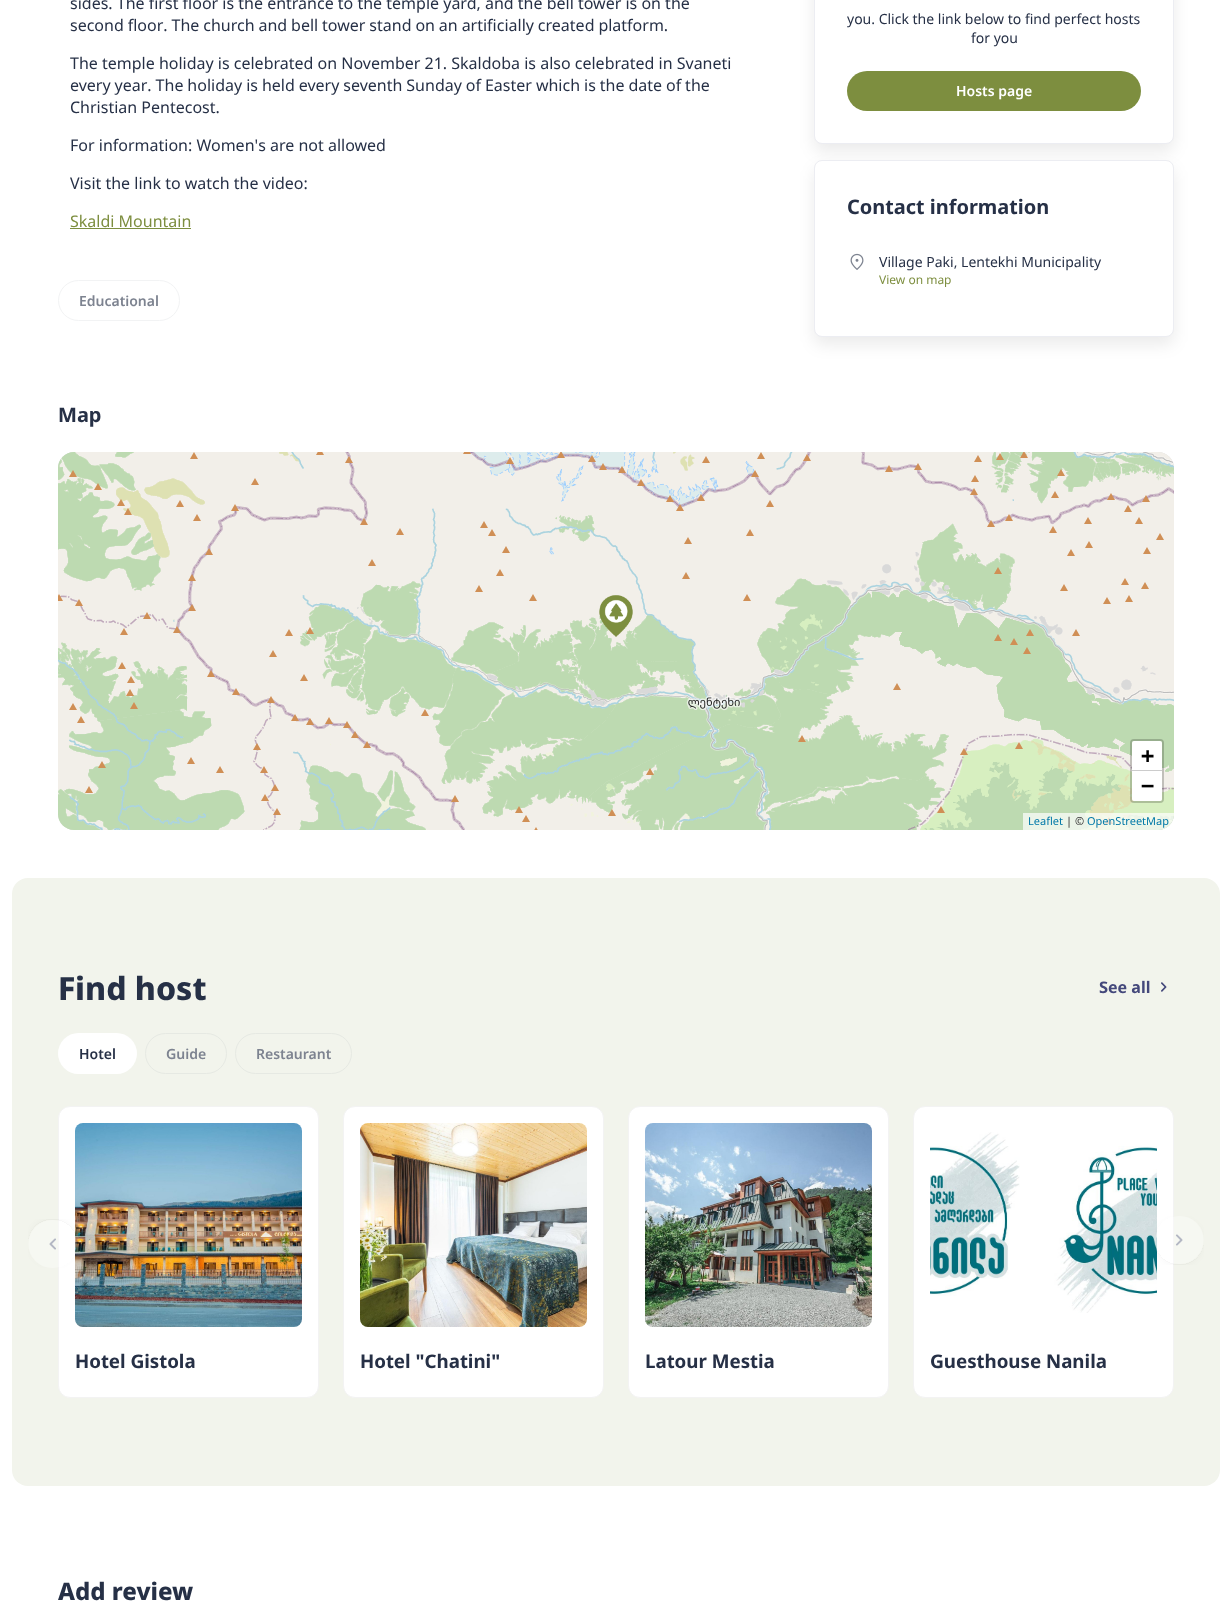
<!DOCTYPE html>
<meta charset="utf-8">
<style>body { margin: 0 } canvas { display: block }</style>
<canvas id="canvas" width="1232" height="1615"></canvas>
<img id="img1" src="img_01.png" hidden>
<img id="img2" src="img_02.png" hidden>
<img id="img3" src="img_03.png" hidden>
<img id="img4" src="img_04.png" hidden>
<img id="img5" src="img_05.png" hidden>
<img id="img6" src="img_06.png" hidden>
<img id="img7" src="img_07.png" hidden>
<img id="img8" src="img_08.png" hidden>
<img id="img9" src="img_09.png" hidden>
<img id="img10" src="img_10.png" hidden>
<img id="img11" src="img_11.png" hidden>
<img id="img12" src="img_12.png" hidden>
<img id="img13" src="img_13.png" hidden>
<img id="img14" src="img_16.png" hidden>
<img id="img15" src="img_14.png" hidden>
<img id="img16" src="img_19.png" hidden>
<img id="img17" src="img_15.png" hidden>
<img id="img18" src="img_17.png" hidden>
<img id="img19" src="img_18.png" hidden>
<script>
window.onload = function () {
	const canvas = document.getElementById("canvas");
	const ctx = canvas.getContext("2d");
	ctx.miterLimit = 4;
	ctx.fontKerning = "normal";
	function txt(s, x, y) {
		ctx.fillText(s, x, y);
	}
	function fill(x, y, w, h) {
		ctx.fillRect(x, y, w, h);
	}
	function round(x, y, w, h, r) {
		ctx.beginPath();
		ctx.roundRect(x, y, w, h, r);
		ctx.fill();
	}
	function img(id, x, y, w, h) {
		ctx.drawImage(document.getElementById(id), x, y, w, h);
	}

	ctx.fillStyle = "#FFFFFF";
	fill(0, 0, 1232, 1615);
	ctx.fillStyle = "#7D8E3F";
	fill(70, 228, 121, 1);
	ctx.beginPath();
	ctx.roundRect(58.5, 280.5, 121, 40, 20);
	ctx.strokeStyle = "#F2F3F4";
	ctx.stroke();
	ctx.fillStyle = "rgba(0, 0, 0, 0.08)";
	ctx.filter = "blur(8px)";
	ctx.beginPath();
	ctx.roundRect(814, -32, 360, 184, 8);
	ctx.fill();
	ctx.filter = "none";
	ctx.fillStyle = "#FFFFFF";
	ctx.beginPath();
	ctx.roundRect(814.5, -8.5, 359, 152, 7.5);
	ctx.fill();
	ctx.strokeStyle = "#ECEDF2";
	ctx.stroke();
	ctx.fillStyle = "#7D8E3F";
	round(847, 71, 294, 40, 20);
	ctx.fillStyle = "rgba(0, 0, 0, 0.08)";
	ctx.filter = "blur(8px)";
	ctx.beginPath();
	ctx.roundRect(814, 168, 360, 177, 8);
	ctx.fill();
	ctx.filter = "none";
	ctx.fillStyle = "#FFFFFF";
	ctx.beginPath();
	ctx.roundRect(814.5, 160.5, 359, 176, 7.5);
	ctx.fill();
	ctx.stroke();
	img("img1", 850, 253, 14, 17);
	ctx.fillStyle = "#DDDDDD";
	round(58, 452, 1116, 378, 16);
	img("img2", 58, 452, 129, 205);
	img("img3", 187, 452, 256, 205);
	img("img4", 443, 452, 256, 205);
	img("img5", 699, 452, 256, 205);
	img("img6", 955, 452, 219, 205);
	img("img7", 58, 657, 129, 173);
	img("img8", 187, 657, 256, 173);
	img("img9", 443, 657, 256, 173);
	img("img10", 699, 657, 256, 173);
	img("img11", 955, 657, 219, 173);
	img("img12", 599, 595, 34, 42);
	ctx.beginPath();
	ctx.roundRect(1131, 740, 32, 62, 3);
	ctx.strokeStyle = "rgba(0, 0, 0, 0.2)";
	ctx.lineWidth = 2;
	ctx.stroke();
	ctx.fillStyle = "#FFFFFF";
	ctx.beginPath();
	ctx.roundRect(1132, 741, 30, 30, [2, 2, 0, 0]);
	ctx.fill();
	ctx.fillStyle = "#CCCCCC";
	fill(1132, 770, 30, 1);
	ctx.fillStyle = "#FFFFFF";
	ctx.beginPath();
	ctx.roundRect(1132, 771, 30, 30, [0, 0, 2, 2]);
	ctx.fill();
	ctx.fillStyle = "rgba(255, 255, 255, 0.7)";
	ctx.beginPath();
	ctx.roundRect(1023, 813, 151, 17, [0, 0, 16, 0]);
	ctx.fill();
	ctx.fillStyle = "#F2F4EC";
	round(12, 878, 1208, 608, 16);
	img("img13", 1161, 982, 6, 10);
	ctx.fillStyle = "#FFFFFF";
	round(58, 1033, 79, 41, 20.5);
	ctx.beginPath();
	ctx.roundRect(145.5, 1033.5, 81, 40, 20);
	ctx.strokeStyle = "#E6E9E3";
	ctx.lineWidth = 1;
	ctx.stroke();
	ctx.beginPath();
	ctx.roundRect(235.5, 1033.5, 116, 40, 20);
	ctx.stroke();
	ctx.beginPath();
	ctx.roundRect(58.5, 1106.5, 260, 291, 11.5);
	ctx.fill();
	ctx.strokeStyle = "#F3F3F3";
	ctx.stroke();
	img("img14", 75, 1123, 227, 204);
	img("img15", 28, 1219, 49, 49);
	ctx.beginPath();
	ctx.roundRect(913.5, 1106.5, 260, 291, 11.5);
	ctx.fill();
	ctx.stroke();
	img("img16", 930, 1132, 227, 181);
	img("img17", 1155, 1216, 49, 49);
	ctx.beginPath();
	ctx.roundRect(343.5, 1106.5, 260, 291, 11.5);
	ctx.fill();
	ctx.stroke();
	img("img18", 360, 1123, 227, 204);
	ctx.beginPath();
	ctx.roundRect(628.5, 1106.5, 260, 291, 11.5);
	ctx.fill();
	ctx.stroke();
	img("img19", 645, 1123, 227, 204);
	ctx.font = "16px Noto Sans Georgian";
	ctx.fillStyle = "#263046";
	txt("sides. The first floor is the entrance to the temple yard, and the bell tower is on the", 70, 9);
	ctx.wordSpacing = "-0.25px";
	txt("second floor. The church and bell tower stand on an artificially created platform.", 70, 31);
	ctx.wordSpacing = "0px";
	txt("The temple holiday is celebrated on November 21. Skaldoba is also celebrated in Svaneti", 70, 69);
	ctx.wordSpacing = "-0.2px";
	txt("every year. The holiday is held every seventh Sunday of Easter which is the date of the", 70, 91);
	ctx.wordSpacing = "0px";
	txt("Christian Pentecost.", 70, 113);
	txt("For information: Women's are not allowed", 70, 151);
	txt("Visit the link to watch the video:", 70, 189);
	ctx.fillStyle = "#7D8E3F";
	txt("Skaldi Mountain", 70, 227);
	ctx.font = "600 14px Noto Sans Georgian";
	ctx.fillStyle = "#7D8390";
	txt("Educational", 79, 306);
	ctx.font = "14px Noto Sans Georgian";
	ctx.fillStyle = "#263046";
	txt("you. Click the link below to find perfect hosts", 847, 24);
	txt("for you", 971, 43);
	ctx.font = "600 14px Noto Sans Georgian";
	ctx.fillStyle = "#FFFFFF";
	txt("Hosts page", 956, 96);
	ctx.font = "bold 20px Noto Sans Georgian";
	ctx.fillStyle = "#263046";
	txt("Contact information", 847, 214);
	ctx.font = "14px Noto Sans Georgian";
	txt("Village Paki, Lentekhi Municipality", 879, 267);
	ctx.font = "12px Noto Sans Georgian";
	ctx.fillStyle = "#7D8E3F";
	txt("View on map", 879, 284);
	ctx.font = "bold 20px Noto Sans Georgian";
	ctx.fillStyle = "#263046";
	txt("Map", 58, 422);
	ctx.font = "bold 22px DejaVu Sans Mono";
	ctx.fillStyle = "#000000";
	txt("+", 1141, 763);
	txt("−", 1141, 793);
	ctx.font = "11px Noto Sans Georgian";
	ctx.fillStyle = "#0078A8";
	txt("Leaflet", 1028, 825);
	ctx.fillStyle = "#333333";
	txt("| ©", 1066, 825);
	ctx.fillStyle = "#0078A8";
	txt("OpenStreetMap", 1087, 825);
	ctx.font = "800 32px Noto Sans Georgian";
	ctx.fillStyle = "#263046";
	txt("Find host", 58, 1000);
	ctx.font = "bold 16px Noto Sans Georgian";
	ctx.fillStyle = "#44487B";
	txt("See all", 1099, 993);
	ctx.font = "600 14px Noto Sans Georgian";
	ctx.fillStyle = "#263046";
	txt("Hotel", 79, 1059);
	ctx.fillStyle = "#7D8390";
	txt("Guide", 166, 1059);
	txt("Restaurant", 256, 1059);
	ctx.font = "bold 18.75px Noto Sans Georgian";
	ctx.fillStyle = "#263046";
	txt("Hotel Gistola", 75, 1368);
	txt("Hotel \"Chatini\"", 360, 1368);
	txt("Latour Mestia", 645, 1368);
	txt("Guesthouse Nanila", 930, 1368);
	ctx.font = "800 24px Noto Sans Georgian";
	txt("Add review", 58, 1600);
};
</script>
